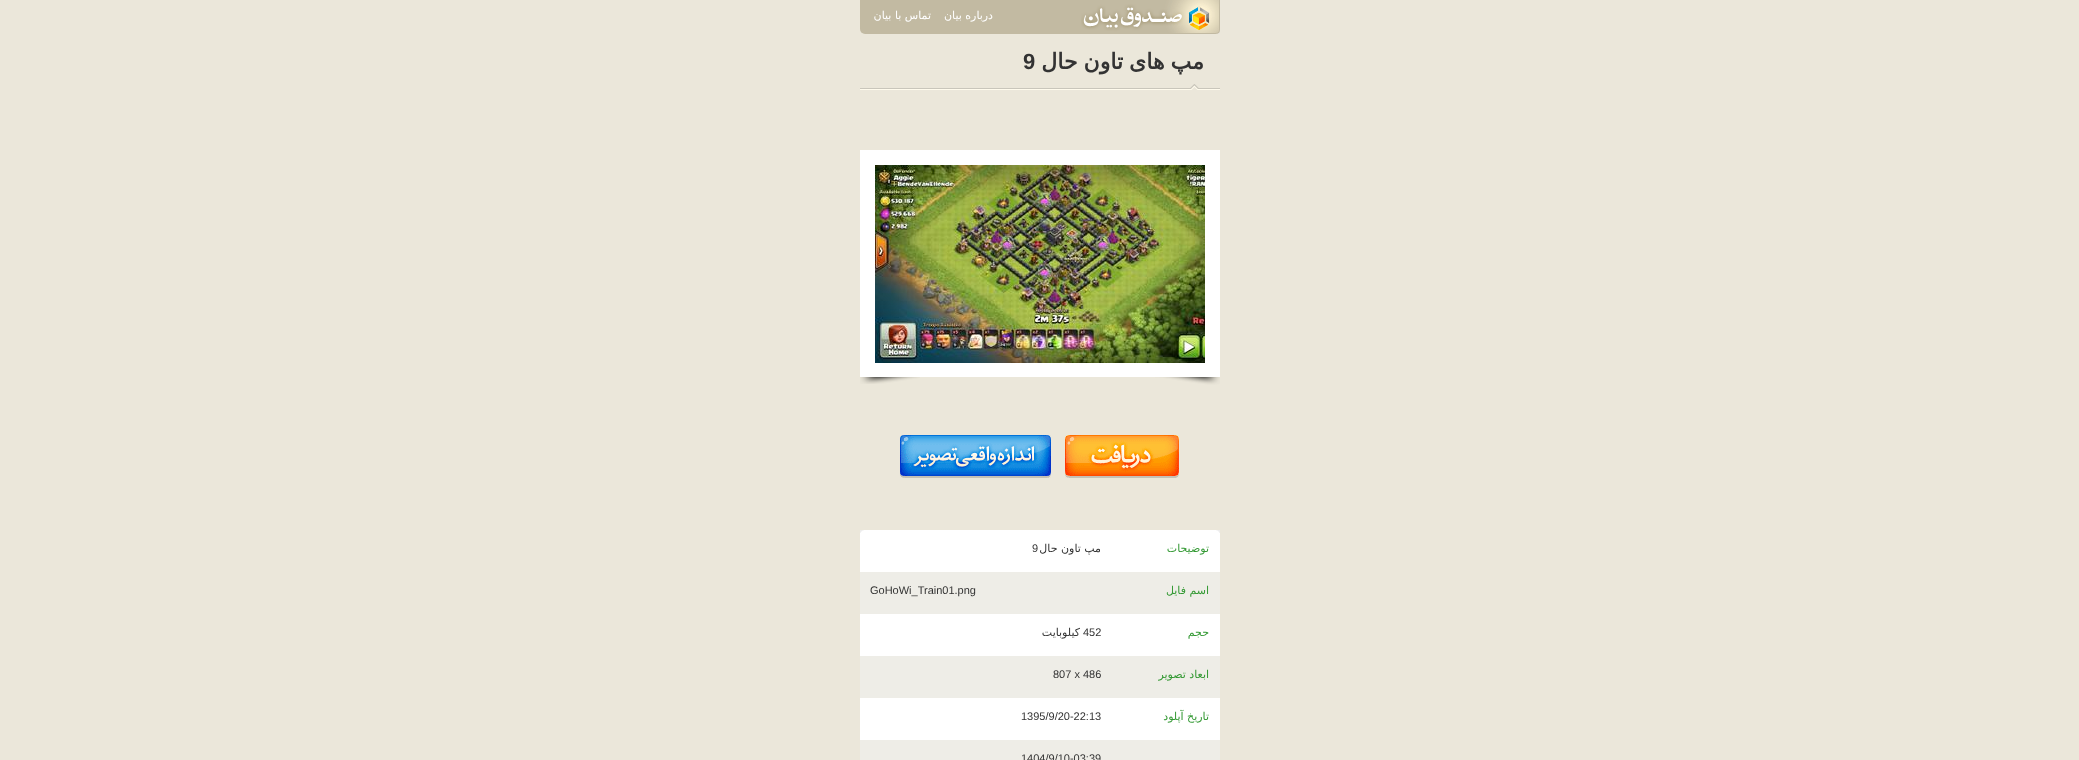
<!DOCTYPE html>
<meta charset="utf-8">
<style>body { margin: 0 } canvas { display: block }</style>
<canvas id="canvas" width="2079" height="760"></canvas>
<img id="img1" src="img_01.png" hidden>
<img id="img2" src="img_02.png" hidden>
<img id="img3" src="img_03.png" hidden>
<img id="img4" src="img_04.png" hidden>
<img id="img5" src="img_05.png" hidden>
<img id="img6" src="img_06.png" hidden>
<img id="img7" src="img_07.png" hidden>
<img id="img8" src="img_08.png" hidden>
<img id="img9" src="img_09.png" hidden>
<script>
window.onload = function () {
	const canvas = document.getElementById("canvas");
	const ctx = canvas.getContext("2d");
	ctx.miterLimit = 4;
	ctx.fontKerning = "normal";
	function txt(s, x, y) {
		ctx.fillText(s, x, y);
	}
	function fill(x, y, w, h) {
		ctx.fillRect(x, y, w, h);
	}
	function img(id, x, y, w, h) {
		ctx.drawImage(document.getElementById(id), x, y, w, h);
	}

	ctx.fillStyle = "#EBE7DA";
	fill(0, 0, 2079, 760);
	ctx.fillStyle = "#C2BAA2";
	ctx.beginPath();
	ctx.roundRect(860, 0, 360, 34, [0, 0, 5, 5]);
	ctx.fill();
	img("img1", 1081, 0, 139, 34);
	img("img2", 860, 84, 360, 6);
	ctx.fillStyle = "#FFFFFF";
	fill(860, 150, 360, 227);
	img("img3", 860, 377, 360, 8);
	img("img4", 860, 377, 60, 7);
	img("img5", 875, 165, 330, 198);
	img("img6", 1065, 435, 114, 43);
	img("img7", 900, 435, 151, 43);
	fill(860, 530, 360, 210);
	img("img8", 1216, 530, 4, 3);
	img("img9", 860, 530, 4, 3);
	ctx.fillStyle = "#EEEDE7";
	fill(860, 572, 360, 42);
	fill(860, 656, 360, 42);
	fill(860, 740, 360, 20);
	ctx.direction = "rtl";
	ctx.font = "11px DejaVu Sans";
	ctx.fillStyle = "#FFFFFF";
	txt("درباره بیان", 993, 19);
	txt("تماس با بیان", 931, 19);
	ctx.wordSpacing = "-1px";
	ctx.font = "bold 22px DejaVu Sans";
	ctx.fillStyle = "#333333";
	txt("مپ های تاون حال", 1204, 69);
	ctx.wordSpacing = "0px";
	ctx.direction = "ltr";
	ctx.font = "bold 22px Liberation Sans";
	txt("9", 1023, 69);
	ctx.direction = "rtl";
	ctx.font = "11px DejaVu Sans";
	ctx.fillStyle = "#339933";
	txt("توضیحات", 1209, 552);
	ctx.save();
	ctx.beginPath();
	ctx.rect(870, 540, 231, 17);
	ctx.clip();
	ctx.fillStyle = "#333333";
	txt("مپ تاون حال", 1101, 552);
	ctx.restore();
	ctx.direction = "ltr";
	ctx.font = "11px Liberation Sans";
	ctx.fillStyle = "#333333";
	txt("9", 1032, 552);
	ctx.direction = "rtl";
	ctx.font = "11px DejaVu Sans";
	ctx.fillStyle = "#339933";
	txt("اسم فایل", 1209, 594);
	ctx.direction = "ltr";
	ctx.font = "11px Liberation Sans";
	ctx.fillStyle = "#333333";
	txt("GoHoWi_Train01.png", 870, 594);
	ctx.direction = "rtl";
	ctx.font = "11px DejaVu Sans";
	ctx.fillStyle = "#339933";
	txt("حجم", 1209, 636);
	ctx.direction = "ltr";
	ctx.font = "11px Liberation Sans";
	ctx.fillStyle = "#333333";
	txt("452", 1083, 636);
	ctx.direction = "rtl";
	ctx.font = "11px DejaVu Sans";
	txt("کیلوبایت", 1080, 636);
	ctx.fillStyle = "#339933";
	txt("ابعاد تصویر", 1209, 678);
	ctx.direction = "ltr";
	ctx.font = "11px Liberation Sans";
	ctx.fillStyle = "#333333";
	txt("807 x 486", 1053, 678);
	ctx.direction = "rtl";
	ctx.font = "11px DejaVu Sans";
	ctx.fillStyle = "#339933";
	txt("تاریخ آپلود", 1209, 720);
	ctx.direction = "ltr";
	ctx.font = "11px Liberation Sans";
	ctx.fillStyle = "#333333";
	txt("1395/9/20-22:13", 1021, 720);
	txt("1404/9/10-03:39", 1021, 762);
};
</script>
